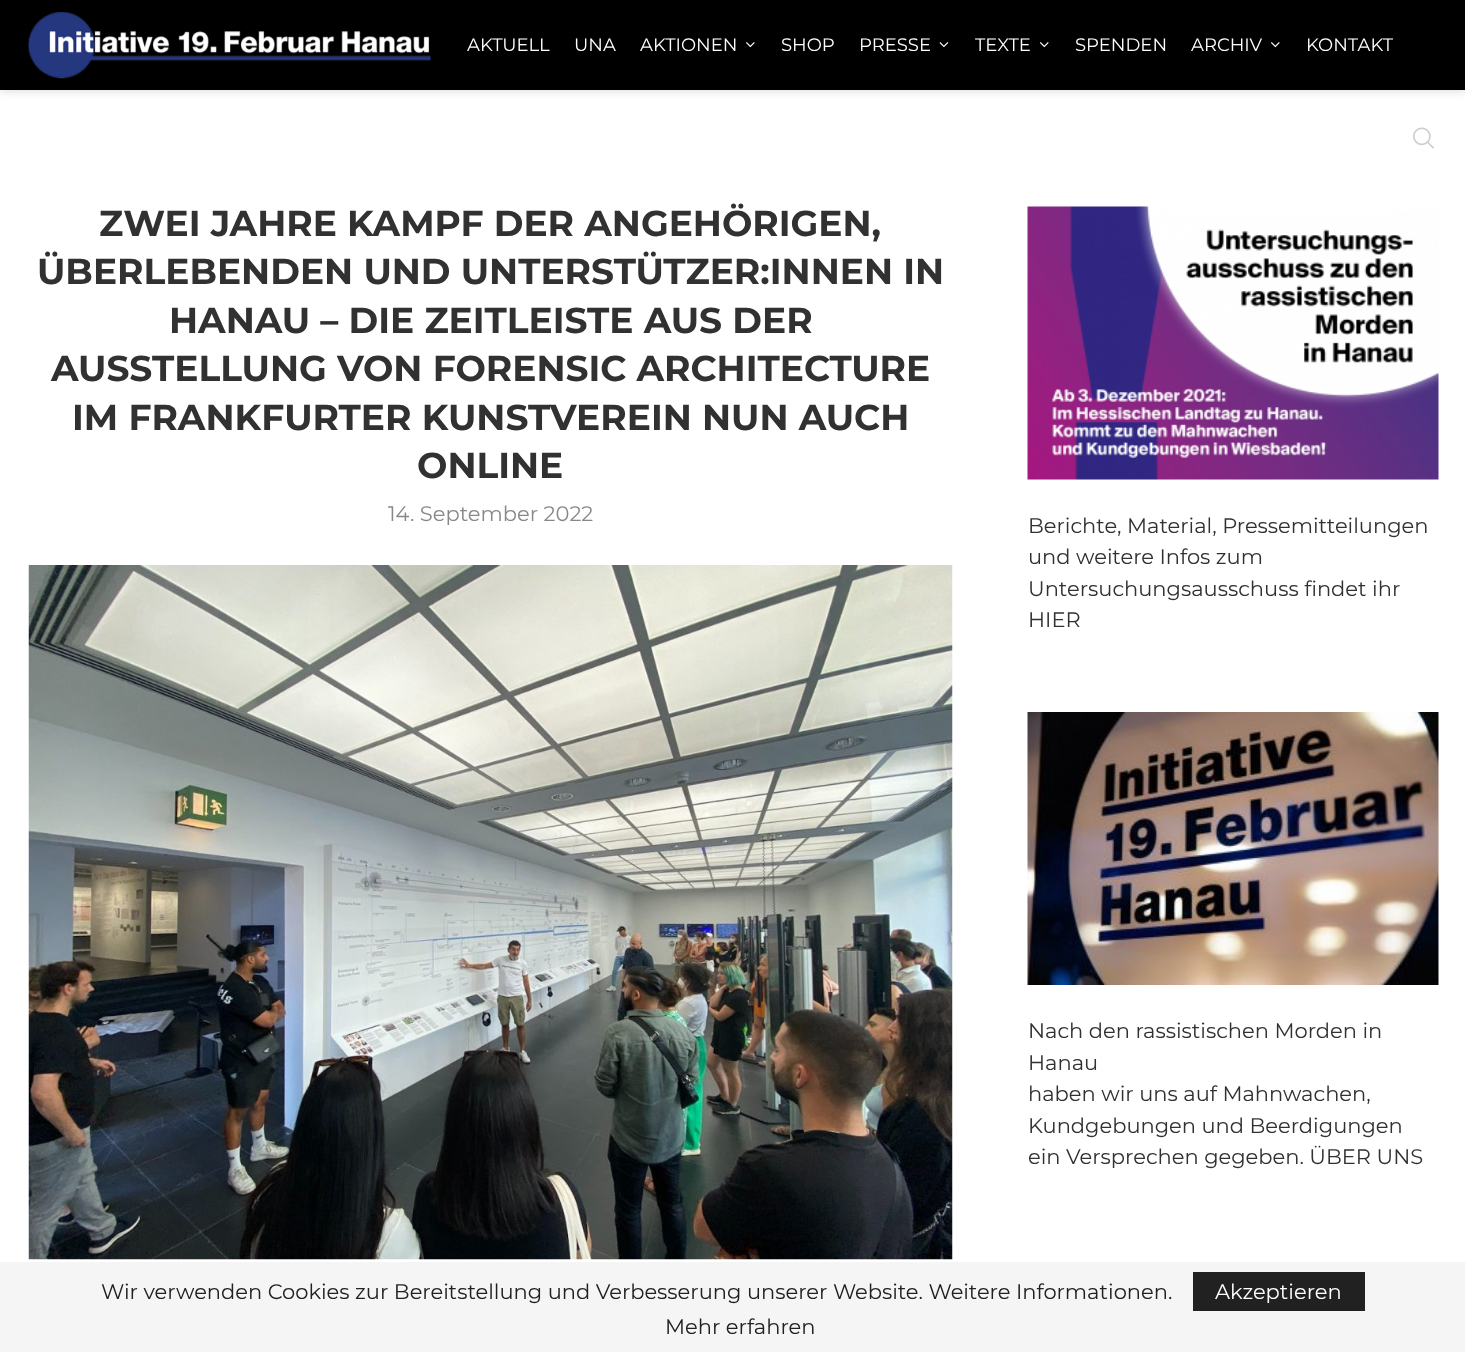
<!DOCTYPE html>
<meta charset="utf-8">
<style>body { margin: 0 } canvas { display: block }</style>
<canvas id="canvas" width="1465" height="1352"></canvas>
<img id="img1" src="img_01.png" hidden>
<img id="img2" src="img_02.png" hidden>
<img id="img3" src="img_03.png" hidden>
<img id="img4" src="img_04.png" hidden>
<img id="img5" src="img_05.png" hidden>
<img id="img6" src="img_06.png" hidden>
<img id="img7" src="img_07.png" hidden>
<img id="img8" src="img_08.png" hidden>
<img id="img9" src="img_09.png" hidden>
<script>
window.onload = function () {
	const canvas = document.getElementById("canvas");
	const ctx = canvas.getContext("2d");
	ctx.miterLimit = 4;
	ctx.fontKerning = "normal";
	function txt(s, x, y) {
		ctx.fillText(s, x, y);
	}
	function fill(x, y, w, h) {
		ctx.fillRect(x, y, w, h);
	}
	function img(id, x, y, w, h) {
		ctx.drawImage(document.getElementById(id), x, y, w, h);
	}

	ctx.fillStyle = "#FFFFFF";
	fill(0, 0, 1465, 1352);
	ctx.fillStyle = "rgba(190, 190, 190, 0.46)";
	ctx.filter = "blur(4px)";
	ctx.beginPath();
	ctx.rect(0, 2, 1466, 90);
	ctx.fill();
	ctx.filter = "none";
	ctx.fillStyle = "#000000";
	fill(0, 0, 1465, 90);
	img("img1", 28, 12, 403, 67);
	img("img2", 746, 42, 9, 6);
	img("img3", 939, 42, 10, 6);
	img("img4", 1040, 42, 9, 6);
	img("img5", 1271, 42, 9, 6);
	img("img6", 1413, 127, 21, 22);
	img("img7", 28, 565, 925, 695);
	img("img8", 1027, 206, 412, 274);
	img("img9", 1027, 712, 412, 273);
	ctx.fillStyle = "#F5F5F5";
	fill(0, 1262, 1465, 90);
	ctx.fillStyle = "#212121";
	fill(1193, 1272, 172, 39);
	ctx.font = "18px Montserrat";
	ctx.fillStyle = "#FFFFFF";
	txt("AKTUELL", 467, 51);
	txt("UNA", 574, 51);
	txt("AKTIONEN", 640, 51);
	txt("SHOP", 781, 51);
	txt("PRESSE", 859, 51);
	txt("TEXTE", 975, 51);
	txt("SPENDEN", 1075, 51);
	txt("ARCHIV", 1191, 51);
	txt("KONTAKT", 1306, 51);
	ctx.font = "bold 36px Montserrat";
	ctx.fillStyle = "#313131";
	txt("ZWEI JAHRE KAMPF DER ANGEHÖRIGEN,", 99, 236);
	txt("ÜBERLEBENDEN UND UNTERSTÜTZER:INNEN IN", 37, 284);
	txt("HANAU – DIE ZEITLEISTE AUS DER", 169, 333);
	txt("AUSSTELLUNG VON FORENSIC ARCHITECTURE", 51, 381);
	txt("IM FRANKFURTER KUNSTVEREIN NUN AUCH", 72, 430);
	txt("ONLINE", 417, 478);
	ctx.font = "21px Montserrat";
	ctx.fillStyle = "#888888";
	txt("14. September 2022", 388, 521);
	ctx.fillStyle = "#313131";
	txt("Berichte, Material, Pressemitteilungen", 1028, 533);
	txt("und weitere Infos zum", 1028, 564);
	txt("Untersuchungsausschuss findet ihr", 1028, 596);
	txt("HIER", 1028, 627);
	txt("Nach den rassistischen Morden in", 1028, 1038);
	txt("Hanau", 1028, 1070);
	txt("haben wir uns auf Mahnwachen,", 1028, 1101);
	txt("Kundgebungen und Beerdigungen", 1028, 1133);
	txt("ein Versprechen gegeben. ÜBER UNS", 1028, 1164);
	ctx.fillStyle = "#212121";
	txt("Wir verwenden Cookies zur Bereitstellung und Verbesserung unserer Website. Weitere Informationen.", 101, 1299);
	ctx.fillStyle = "#FFFFFF";
	txt("Akzeptieren", 1215, 1299);
	ctx.fillStyle = "#212121";
	txt("Mehr erfahren", 665, 1334);
};
</script>
